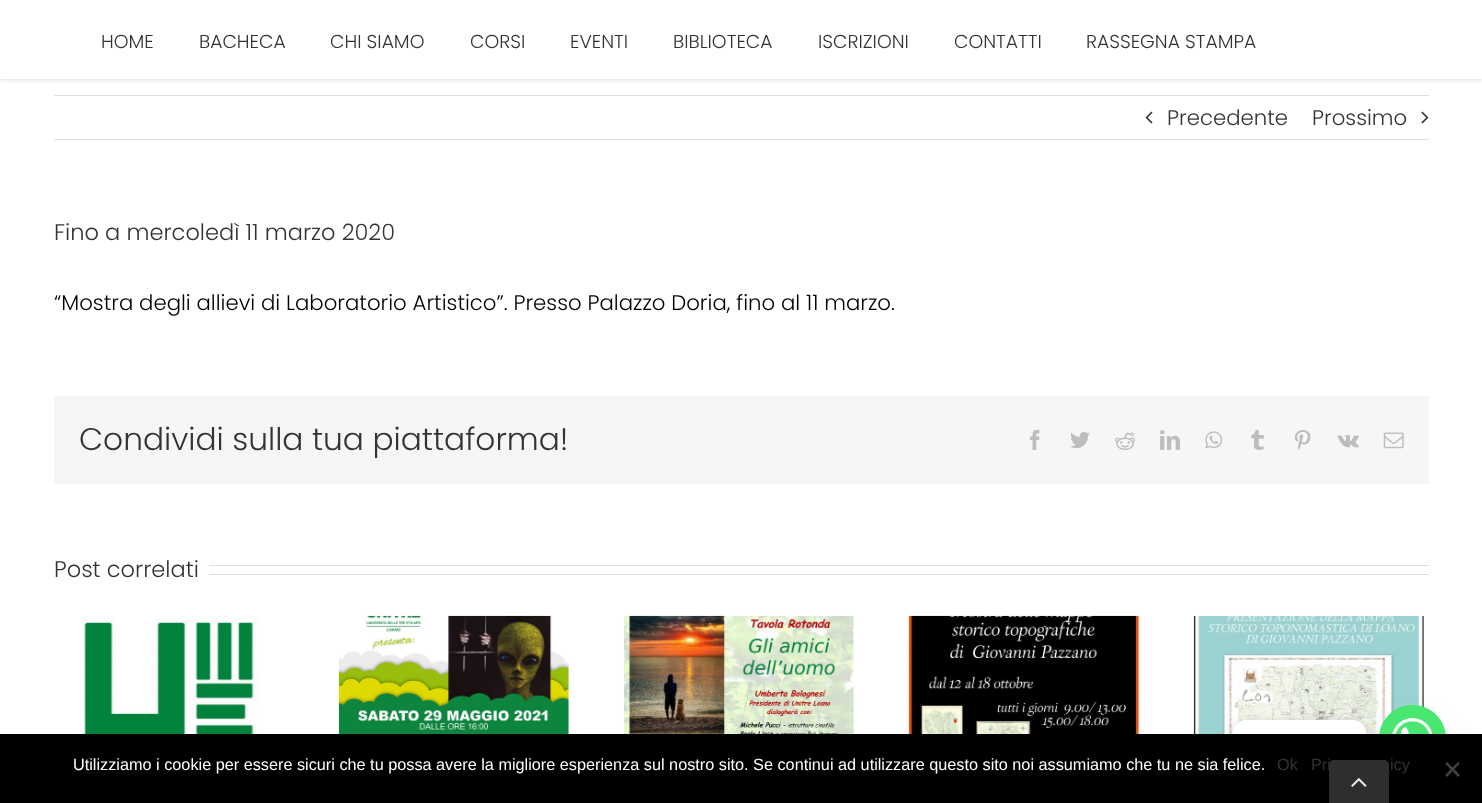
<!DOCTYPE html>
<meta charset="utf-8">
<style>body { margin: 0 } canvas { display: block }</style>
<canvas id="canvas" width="1482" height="803"></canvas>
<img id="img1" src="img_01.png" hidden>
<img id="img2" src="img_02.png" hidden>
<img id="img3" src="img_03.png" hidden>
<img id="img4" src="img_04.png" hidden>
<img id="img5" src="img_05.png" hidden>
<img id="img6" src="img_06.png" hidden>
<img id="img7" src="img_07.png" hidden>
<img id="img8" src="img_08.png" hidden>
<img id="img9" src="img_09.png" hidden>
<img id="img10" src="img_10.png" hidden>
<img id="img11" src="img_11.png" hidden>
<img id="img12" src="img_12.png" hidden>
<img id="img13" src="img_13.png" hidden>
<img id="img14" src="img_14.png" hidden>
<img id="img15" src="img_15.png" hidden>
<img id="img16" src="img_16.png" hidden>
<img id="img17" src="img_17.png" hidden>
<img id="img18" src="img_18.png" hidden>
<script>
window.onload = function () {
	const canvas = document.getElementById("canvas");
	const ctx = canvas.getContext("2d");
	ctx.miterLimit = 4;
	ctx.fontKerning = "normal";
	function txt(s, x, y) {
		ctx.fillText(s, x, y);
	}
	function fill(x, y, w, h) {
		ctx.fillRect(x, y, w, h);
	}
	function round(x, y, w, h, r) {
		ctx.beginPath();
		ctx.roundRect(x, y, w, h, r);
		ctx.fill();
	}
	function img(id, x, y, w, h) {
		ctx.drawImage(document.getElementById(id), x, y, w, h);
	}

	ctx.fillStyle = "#FFFFFF";
	fill(0, 0, 1482, 803);
	ctx.fillStyle = "rgba(0, 0, 0, 0.12)";
	ctx.filter = "blur(2px)";
	ctx.beginPath();
	ctx.rect(0, 1, 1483, 79);
	ctx.fill();
	ctx.filter = "none";
	ctx.fillStyle = "#FFFFFF";
	fill(0, 0, 1482, 79);
	ctx.fillStyle = "#E0DEDE";
	fill(54, 95, 1375, 1);
	fill(54, 139, 1375, 1);
	img("img1", 1145, 111, 8, 13);
	img("img2", 1421, 111, 8, 13);
	ctx.fillStyle = "#F6F6F6";
	fill(54, 396, 1375, 88);
	img("img3", 1030, 430, 10, 20);
	img("img4", 1070, 431, 20, 18);
	img("img5", 1115, 432, 20, 18);
	img("img6", 1160, 430, 20, 20);
	img("img7", 1205, 431, 18, 18);
	img("img8", 1251, 430, 13, 20);
	img("img9", 1294, 430, 17, 20);
	img("img10", 1337, 435, 22, 13);
	img("img11", 1383, 432, 21, 17);
	ctx.fillStyle = "#E0DEDE";
	fill(209, 565, 1220, 1);
	fill(209, 574, 1220, 1);
	img("img12", 83, 616, 176, 118);
	img("img13", 338, 615, 231, 119);
	img("img14", 623, 615, 231, 119);
	img("img15", 908, 615, 231, 119);
	img("img16", 1193, 615, 231, 119);
	ctx.fillStyle = "rgba(73, 104, 126, 0.16)";
	ctx.filter = "blur(15px)";
	ctx.beginPath();
	ctx.roundRect(1379, 725, 67, 68, 33.5);
	ctx.fill();
	ctx.filter = "none";
	img("img17", 1379, 705, 67, 29);
	ctx.fillStyle = "rgba(0, 0, 0, 0.15)";
	ctx.filter = "blur(5px)";
	ctx.beginPath();
	ctx.roundRect(1233, 721, 133, 39, 13);
	ctx.fill();
	ctx.filter = "none";
	ctx.fillStyle = "#FFFFFF";
	round(1233, 720, 133, 39, 13);
	ctx.beginPath();
	ctx.moveTo(1366, 745.5);
	ctx.lineTo(1366, 733);
	ctx.lineTo(1372.5, 739.5);
	ctx.closePath();
	ctx.fill();
	ctx.fillStyle = "#000000";
	fill(0, 734, 1482, 69);
	ctx.fillStyle = "#404040";
	ctx.beginPath();
	ctx.moveTo(1458, 762);
	ctx.lineTo(1460, 763.5);
	ctx.lineTo(1447, 777);
	ctx.lineTo(1445, 775);
	ctx.closePath();
	ctx.fill();
	ctx.beginPath();
	ctx.moveTo(1445, 763.5);
	ctx.lineTo(1447, 762);
	ctx.lineTo(1460, 775);
	ctx.lineTo(1458, 777);
	ctx.closePath();
	ctx.fill();
	ctx.font = "300 18.75px Poppins";
	ctx.fillStyle = "#333333";
	txt("HOME", 101, 48);
	txt("BACHECA", 199, 48);
	txt("CHI SIAMO", 330, 48);
	txt("CORSI", 470, 48);
	txt("EVENTI", 570, 48);
	txt("BIBLIOTECA", 673, 48);
	txt("ISCRIZIONI", 818, 48);
	txt("CONTATTI", 954, 48);
	txt("RASSEGNA STAMPA", 1086, 48);
	ctx.font = "300 21.25px Poppins";
	txt("Precedente", 1167, 125);
	txt("Prossimo", 1312, 125);
	ctx.font = "300 22.5px Poppins";
	txt("Fino a mercoledì 11 marzo 2020", 54, 240);
	ctx.font = "300 21.25px Poppins";
	ctx.fillStyle = "#000000";
	txt("“Mostra degli allievi di Laboratorio Artistico”. Presso Palazzo Doria, fino al 11 marzo.", 54, 310);
	ctx.font = "300 31.25px Poppins";
	ctx.fillStyle = "#333333";
	txt("Condividi sulla tua piattaforma!", 79, 450);
	ctx.font = "300 22.5px Poppins";
	txt("Post correlati", 54, 577);
	ctx.font = "16.25px Liberation Sans";
	ctx.fillStyle = "#FFFFFF";
	txt("Utilizziamo i cookie per essere sicuri che tu possa avere la migliore esperienza sul nostro sito. Se continui ad utilizzare questo sito noi assumiamo che tu ne sia felice.", 73, 770);
	ctx.fillStyle = "#333333";
	txt("Ok", 1277, 770);
	txt("Pri", 1311, 770);
	txt("icy", 1390, 770);
	ctx.fillStyle = "rgba(51, 51, 51, 0.9)";
	ctx.beginPath();
	ctx.moveTo(1334, 760);
	ctx.lineTo(1384, 760);
	ctx.bezierCurveTo(1387, 760, 1389, 762, 1389, 765);
	ctx.lineTo(1389, 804);
	ctx.lineTo(1329, 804);
	ctx.lineTo(1329, 765);
	ctx.bezierCurveTo(1329, 762, 1331, 760, 1334, 760);
	ctx.closePath();
	ctx.fill();
	img("img18", 1351, 778, 16, 9);
};
</script>
